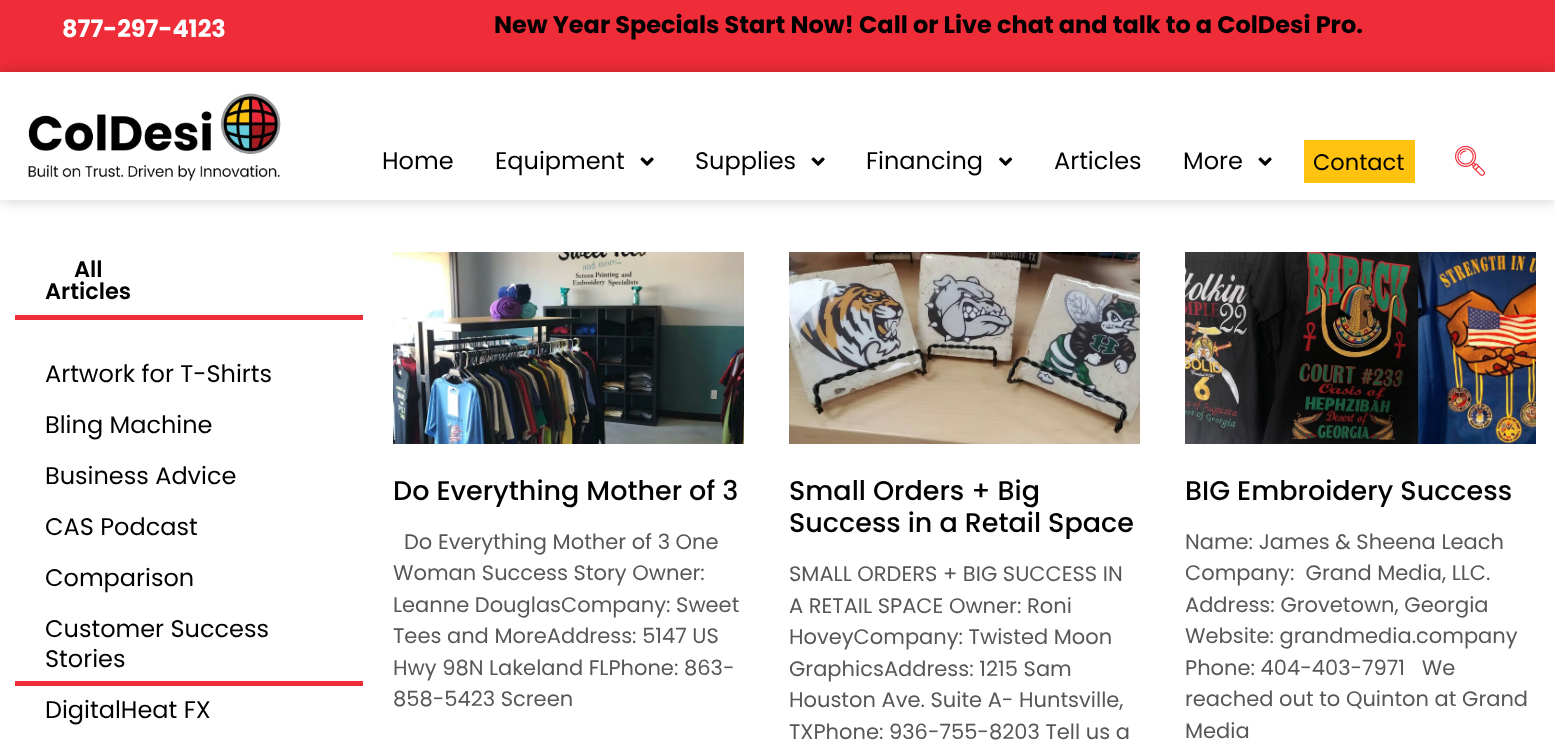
<!DOCTYPE html>
<meta charset="utf-8">
<style>body { margin: 0 } canvas { display: block }</style>
<canvas id="canvas" width="1555" height="746"></canvas>
<img id="img1" src="img_01.png" hidden>
<img id="img2" src="img_02.png" hidden>
<img id="img3" src="img_03.png" hidden>
<img id="img4" src="img_04.png" hidden>
<img id="img5" src="img_05.png" hidden>
<img id="img6" src="img_06.png" hidden>
<img id="img7" src="img_07.png" hidden>
<script>
window.onload = function () {
	const canvas = document.getElementById("canvas");
	const ctx = canvas.getContext("2d");
	ctx.miterLimit = 4;
	ctx.fontKerning = "normal";
	function txt(s, x, y) {
		ctx.fillText(s, x, y);
	}
	function fill(x, y, w, h) {
		ctx.fillRect(x, y, w, h);
	}
	function img(id, x, y, w, h) {
		ctx.drawImage(document.getElementById(id), x, y, w, h);
	}

	ctx.fillStyle = "#FFFFFF";
	fill(0, 0, 1555, 746);
	ctx.fillStyle = "#EE2D38";
	fill(0, 0, 1555, 72);
	ctx.fillStyle = "rgba(0, 0, 0, 0.2)";
	ctx.filter = "blur(7.5px)";
	ctx.beginPath();
	ctx.rect(0, 72, 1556, 128);
	ctx.fill();
	ctx.filter = "none";
	ctx.fillStyle = "#FFFFFF";
	fill(0, 72, 1555, 128);
	img("img1", 28, 93, 253, 88);
	img("img2", 640, 157, 14, 9);
	img("img2", 811, 157, 14, 9);
	img("img3", 999, 157, 14, 9);
	img("img2", 1258, 157, 14, 9);
	ctx.fillStyle = "#FFC20E";
	fill(1304, 140, 111, 43);
	img("img4", 1455, 145, 30, 31);
	ctx.fillStyle = "#EE2D38";
	fill(15, 315, 348, 5);
	fill(15, 681, 348, 5);
	img("img5", 393, 252, 351, 192);
	img("img6", 789, 252, 351, 192);
	img("img7", 1185, 252, 351, 192);
	ctx.font = "bold 24px Poppins";
	ctx.fillStyle = "#FFFFFF";
	txt("877-297-4123", 62, 37);
	ctx.fillStyle = "#000000";
	txt("New Year Specials Start Now! Call or Live chat and talk to a ColDesi Pro.", 494, 33);
	ctx.font = "24px Poppins";
	txt("Home", 382, 169);
	txt("Equipment", 495, 169);
	txt("Supplies", 695, 169);
	txt("Financing", 866, 169);
	txt("Articles", 1054, 169);
	txt("More", 1183, 169);
	ctx.font = "22.5px Poppins";
	txt("Contact", 1313, 170);
	ctx.font = "600 22.5px Poppins";
	txt("All", 74, 277);
	txt("Articles", 45, 299);
	ctx.font = "24px Poppins";
	txt("Artwork for T-Shirts", 45, 382);
	txt("Bling Machine", 45, 433);
	txt("Business Advice", 45, 484);
	txt("CAS Podcast", 45, 535);
	txt("Comparison", 45, 586);
	txt("Customer Success", 45, 637);
	txt("Stories", 45, 667);
	txt("DigitalHeat FX", 45, 718);
	ctx.font = "500 27px Poppins";
	txt("Do Everything Mother of 3", 393, 500);
	ctx.font = "21px Poppins";
	ctx.fillStyle = "#575757";
	txt("Do Everything Mother of 3 One", 404, 549);
	txt("Woman Success Story Owner:", 393, 580);
	txt("Leanne DouglasCompany: Sweet", 393, 612);
	txt("Tees and MoreAddress: 5147 US", 393, 643);
	txt("Hwy 98N Lakeland FLPhone: 863-", 393, 675);
	txt("858-5423 Screen", 393, 706);
	ctx.font = "500 27px Poppins";
	ctx.fillStyle = "#000000";
	txt("Small Orders + Big", 789, 500);
	txt("Success in a Retail Space", 789, 532);
	ctx.font = "21px Poppins";
	ctx.fillStyle = "#575757";
	txt("SMALL ORDERS + BIG SUCCESS IN", 789, 581);
	txt("A RETAIL SPACE Owner: Roni", 789, 613);
	txt("HoveyCompany: Twisted Moon", 789, 644);
	txt("GraphicsAddress: 1215 Sam", 789, 676);
	txt("Houston Ave. Suite A- Huntsville,", 789, 707);
	txt("TXPhone: 936-755-8203 Tell us a", 789, 739);
	ctx.font = "500 27px Poppins";
	ctx.fillStyle = "#000000";
	txt("BIG Embroidery Success", 1185, 500);
	ctx.font = "21px Poppins";
	ctx.fillStyle = "#575757";
	txt("Name: James & Sheena Leach", 1185, 549);
	txt("Company:  Grand Media, LLC.", 1185, 580);
	txt("Address: Grovetown, Georgia", 1185, 612);
	txt("Website: grandmedia.company", 1185, 643);
	txt("Phone: 404-403-7971   We", 1185, 675);
	txt("reached out to Quinton at Grand", 1185, 706);
	txt("Media", 1185, 738);
};
</script>
